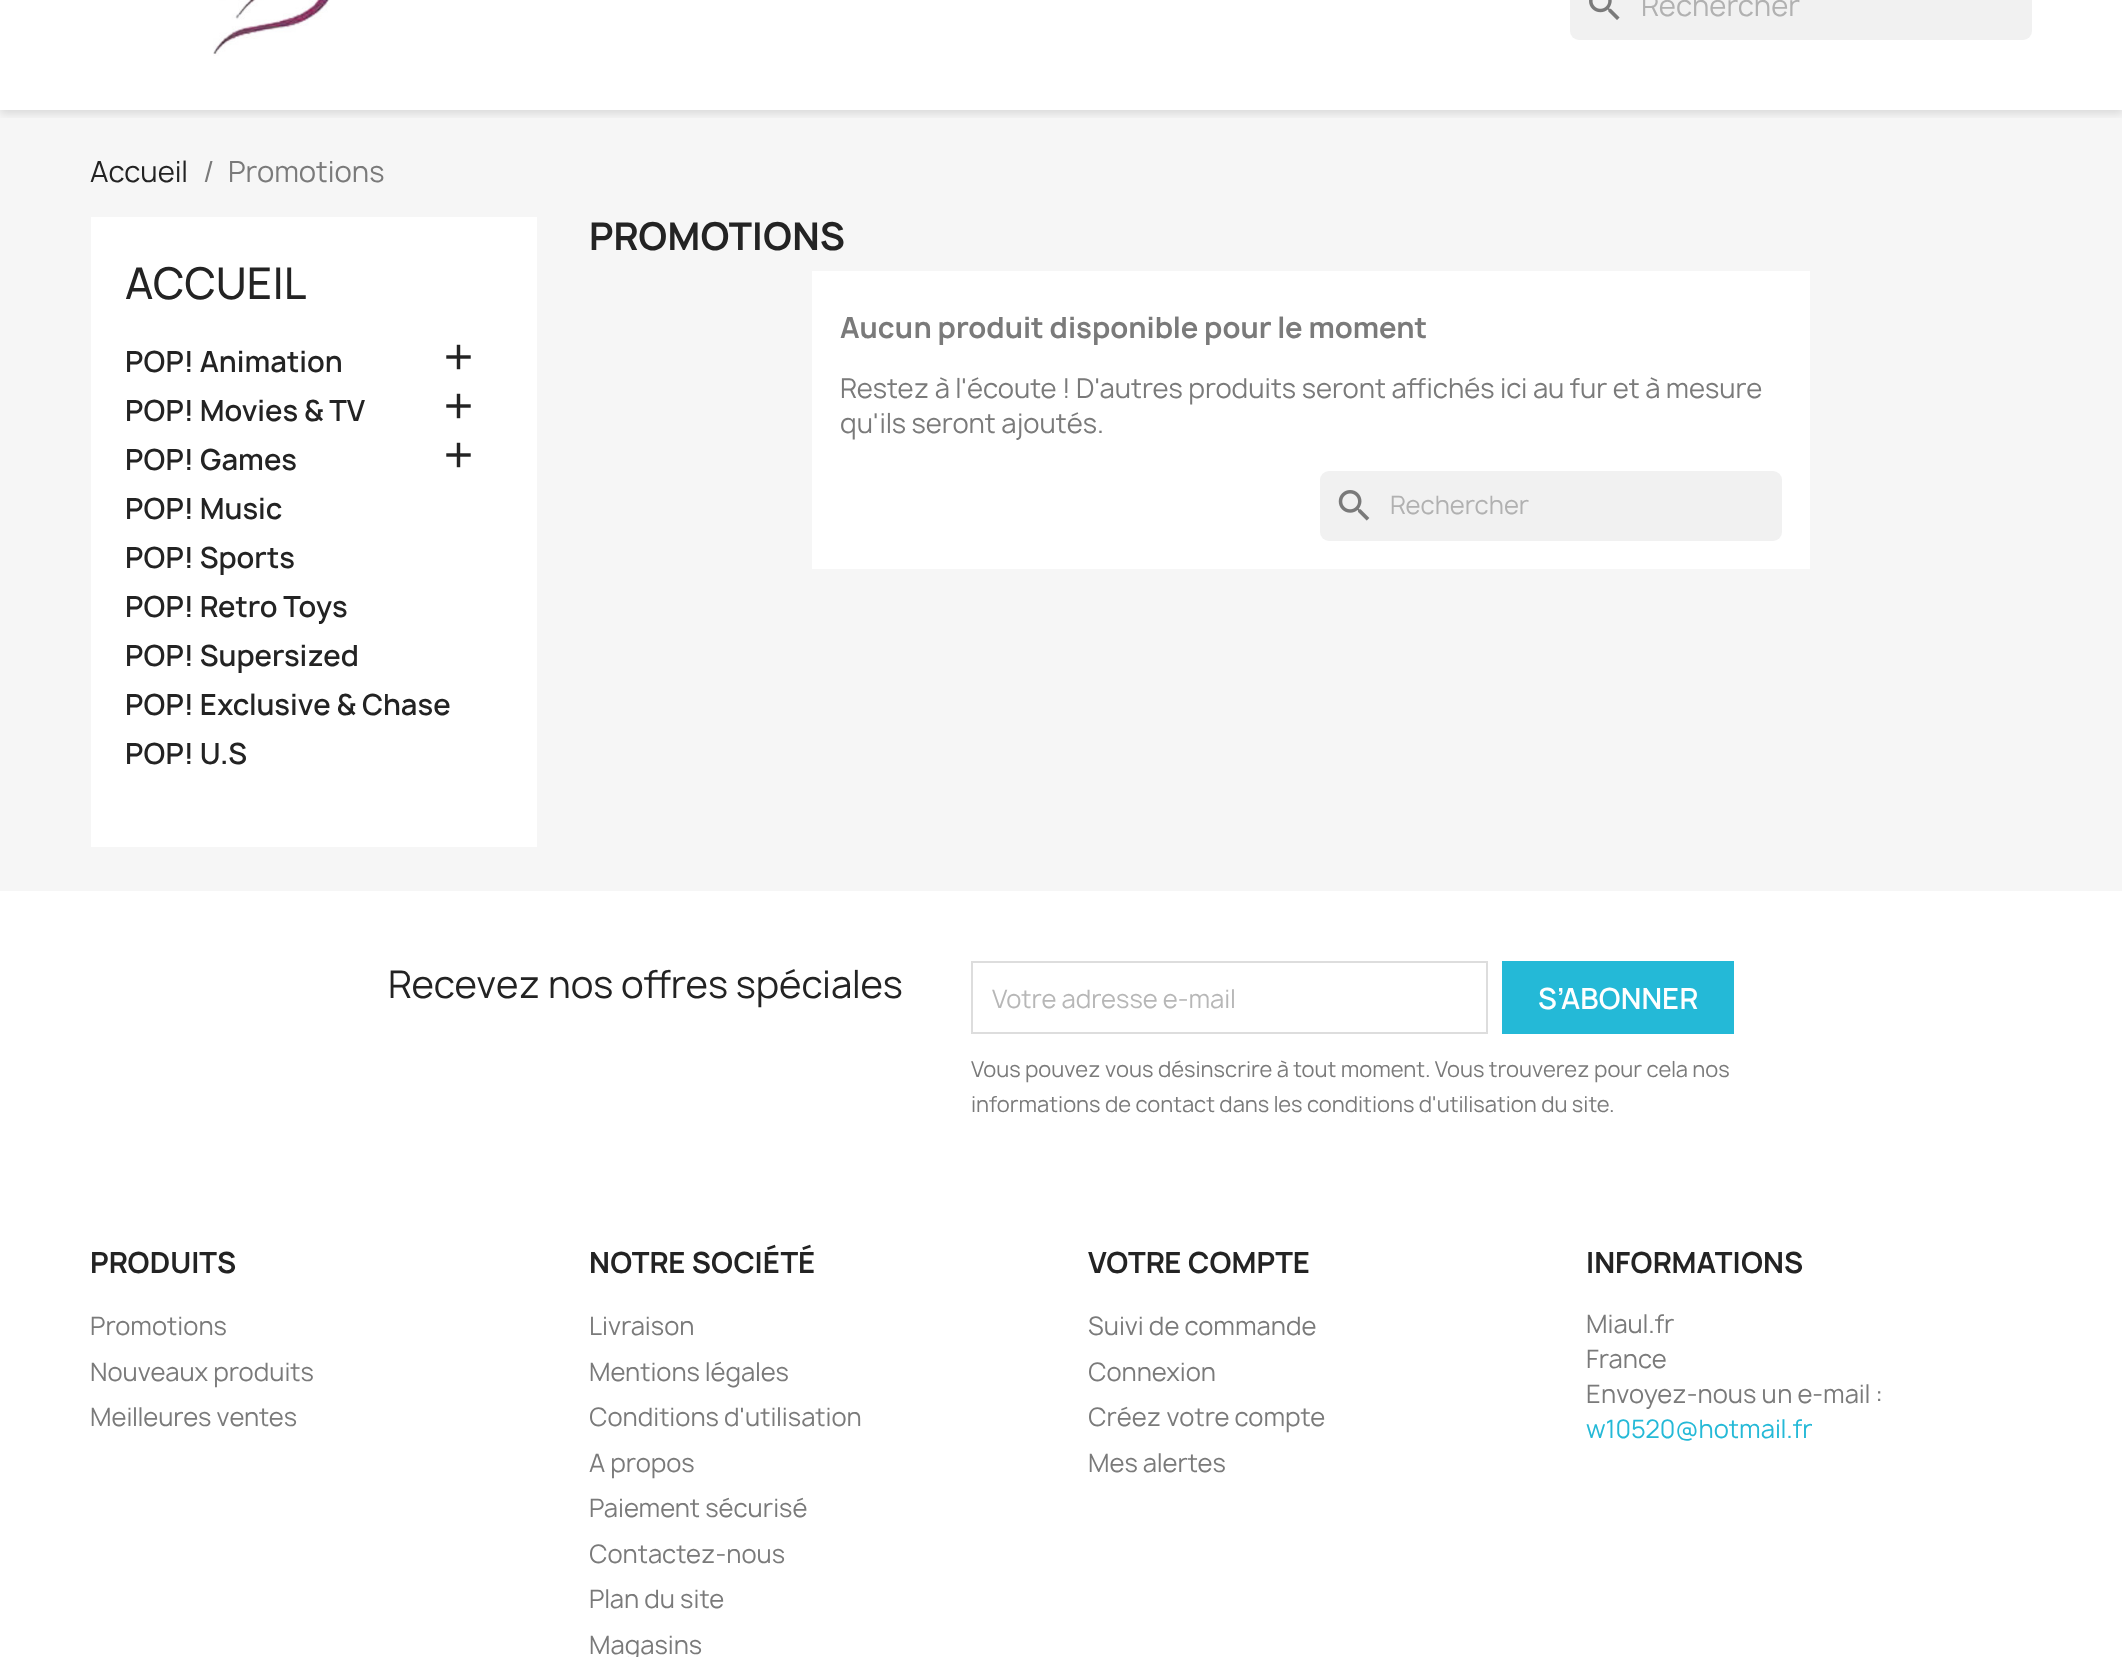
<!DOCTYPE html>
<meta charset="utf-8">
<style>body { margin: 0 } canvas { display: block }</style>
<canvas id="canvas" width="2122" height="1657"></canvas>
<img id="img1" src="img_01.png" hidden>
<img id="img2" src="img_02.png" hidden>
<img id="img3" src="img_03.png" hidden>
<img id="img4" src="img_04.png" hidden>
<script>
window.onload = function () {
	const canvas = document.getElementById("canvas");
	const ctx = canvas.getContext("2d");
	ctx.miterLimit = 4;
	ctx.fontKerning = "normal";
	function txt(s, x, y) {
		ctx.fillText(s, x, y);
	}
	function fill(x, y, w, h) {
		ctx.fillRect(x, y, w, h);
	}
	function round(x, y, w, h, r) {
		ctx.beginPath();
		ctx.roundRect(x, y, w, h, r);
		ctx.fill();
	}
	function img(id, x, y, w, h) {
		ctx.drawImage(document.getElementById(id), x, y, w, h);
	}

	ctx.fillStyle = "#FFFFFF";
	fill(0, 0, 2122, 1657);
	ctx.fillStyle = "#F6F6F6";
	fill(0, 110, 2122, 781);
	ctx.save();
	ctx.beginPath();
	ctx.rect(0, 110, 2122, 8);
	ctx.clip();
	ctx.fillStyle = "rgba(0, 0, 0, 0.11)";
	ctx.filter = "blur(4.5px)";
	ctx.beginPath();
	ctx.rect(0, -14, 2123, 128);
	ctx.fill();
	ctx.filter = "none";
	ctx.restore();
	img("img1", 213, 0, 117, 56);
	ctx.fillStyle = "#F1F1F1";
	round(1570, -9, 462, 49, 9);
	img("img2", 1589, 0, 31, 20);
	ctx.fillStyle = "#FFFFFF";
	fill(91, 217, 446, 630);
	img("img3", 446, 344, 25, 26);
	img("img3", 446, 393, 25, 26);
	img("img3", 446, 442, 25, 26);
	fill(812, 271, 998, 298);
	ctx.fillStyle = "#F1F1F1";
	round(1320, 471, 462, 70, 9);
	img("img4", 1338, 490, 32, 31);
	ctx.strokeStyle = "#DDDDDD";
	ctx.lineWidth = 2;
	ctx.strokeRect(972, 962, 515, 71);
	ctx.fillStyle = "#24B9D7";
	fill(1502, 961, 232, 73);
	ctx.font = "28px Manrope";
	ctx.fillStyle = "#B1B1B1";
	txt("Rechercher", 1641, 16);
	ctx.fillStyle = "#232323";
	txt("Accueil", 90, 182);
	ctx.fillStyle = "#7A7A7A";
	txt("/", 203, 182);
	txt("Promotions", 228, 182);
	ctx.font = "500 42px Manrope";
	ctx.fillStyle = "#232323";
	txt("ACCUEIL", 125, 299);
	ctx.font = "600 28px Manrope";
	txt("POP! Animation", 125, 372);
	txt("POP! Movies & TV", 125, 421);
	txt("POP! Games", 125, 470);
	txt("POP! Music", 125, 519);
	txt("POP! Sports", 125, 568);
	txt("POP! Retro Toys", 125, 617);
	txt("POP! Supersized", 125, 666);
	txt("POP! Exclusive & Chase", 125, 715);
	txt("POP! U.S", 125, 764);
	ctx.font = "bold 36.75px Manrope";
	txt("PROMOTIONS", 589, 250);
	ctx.font = "bold 28px Manrope";
	ctx.fillStyle = "#7A7A7A";
	txt("Aucun produit disponible pour le moment", 840, 338);
	ctx.font = "26.25px Manrope";
	txt("Restez à l'écoute ! D'autres produits seront affichés ici au fur et à mesure", 840, 398);
	txt("qu'ils seront ajoutés.", 840, 433);
	ctx.font = "24.5px Manrope";
	ctx.fillStyle = "#B1B1B1";
	txt("Rechercher", 1390, 514);
	ctx.font = "36.75px Manrope";
	ctx.fillStyle = "#232323";
	txt("Recevez nos offres spéciales", 388, 998);
	ctx.font = "24.5px Manrope";
	ctx.fillStyle = "#B7B7B7";
	txt("Votre adresse e-mail", 992, 1008);
	ctx.font = "600 28px Manrope";
	ctx.fillStyle = "#FFFFFF";
	txt("S’ABONNER", 1538, 1009);
	ctx.font = "21px Manrope";
	ctx.fillStyle = "#7A7A7A";
	txt("Vous pouvez vous désinscrire à tout moment. Vous trouverez pour cela nos", 971, 1077);
	txt("informations de contact dans les conditions d'utilisation du site.", 971, 1112);
	ctx.font = "bold 28px Manrope";
	ctx.fillStyle = "#232323";
	txt("PRODUITS", 90, 1273);
	ctx.font = "24.5px Manrope";
	ctx.fillStyle = "#7A7A7A";
	txt("Promotions", 90, 1335);
	txt("Nouveaux produits", 90, 1381);
	txt("Meilleures ventes", 90, 1426);
	ctx.font = "bold 28px Manrope";
	ctx.fillStyle = "#232323";
	txt("NOTRE SOCIÉTÉ", 589, 1273);
	ctx.font = "24.5px Manrope";
	ctx.fillStyle = "#7A7A7A";
	txt("Livraison", 589, 1335);
	txt("Mentions légales", 589, 1381);
	txt("Conditions d'utilisation", 589, 1426);
	txt("A propos", 589, 1472);
	txt("Paiement sécurisé", 589, 1517);
	txt("Contactez-nous", 589, 1563);
	txt("Plan du site", 589, 1608);
	txt("Magasins", 589, 1654);
	ctx.font = "bold 28px Manrope";
	ctx.fillStyle = "#232323";
	txt("VOTRE COMPTE", 1088, 1273);
	ctx.font = "24.5px Manrope";
	ctx.fillStyle = "#7A7A7A";
	txt("Suivi de commande", 1088, 1335);
	txt("Connexion", 1088, 1381);
	txt("Créez votre compte", 1088, 1426);
	txt("Mes alertes", 1088, 1472);
	ctx.font = "bold 28px Manrope";
	ctx.fillStyle = "#232323";
	txt("INFORMATIONS", 1586, 1273);
	ctx.font = "24.5px Manrope";
	ctx.fillStyle = "#7A7A7A";
	txt("Miaul.fr", 1586, 1333);
	txt("France", 1586, 1368);
	txt("Envoyez-nous un e-mail :", 1586, 1403);
	ctx.fillStyle = "#24B9D7";
	txt("w10520@hotmail.fr", 1586, 1438);
};
</script>
